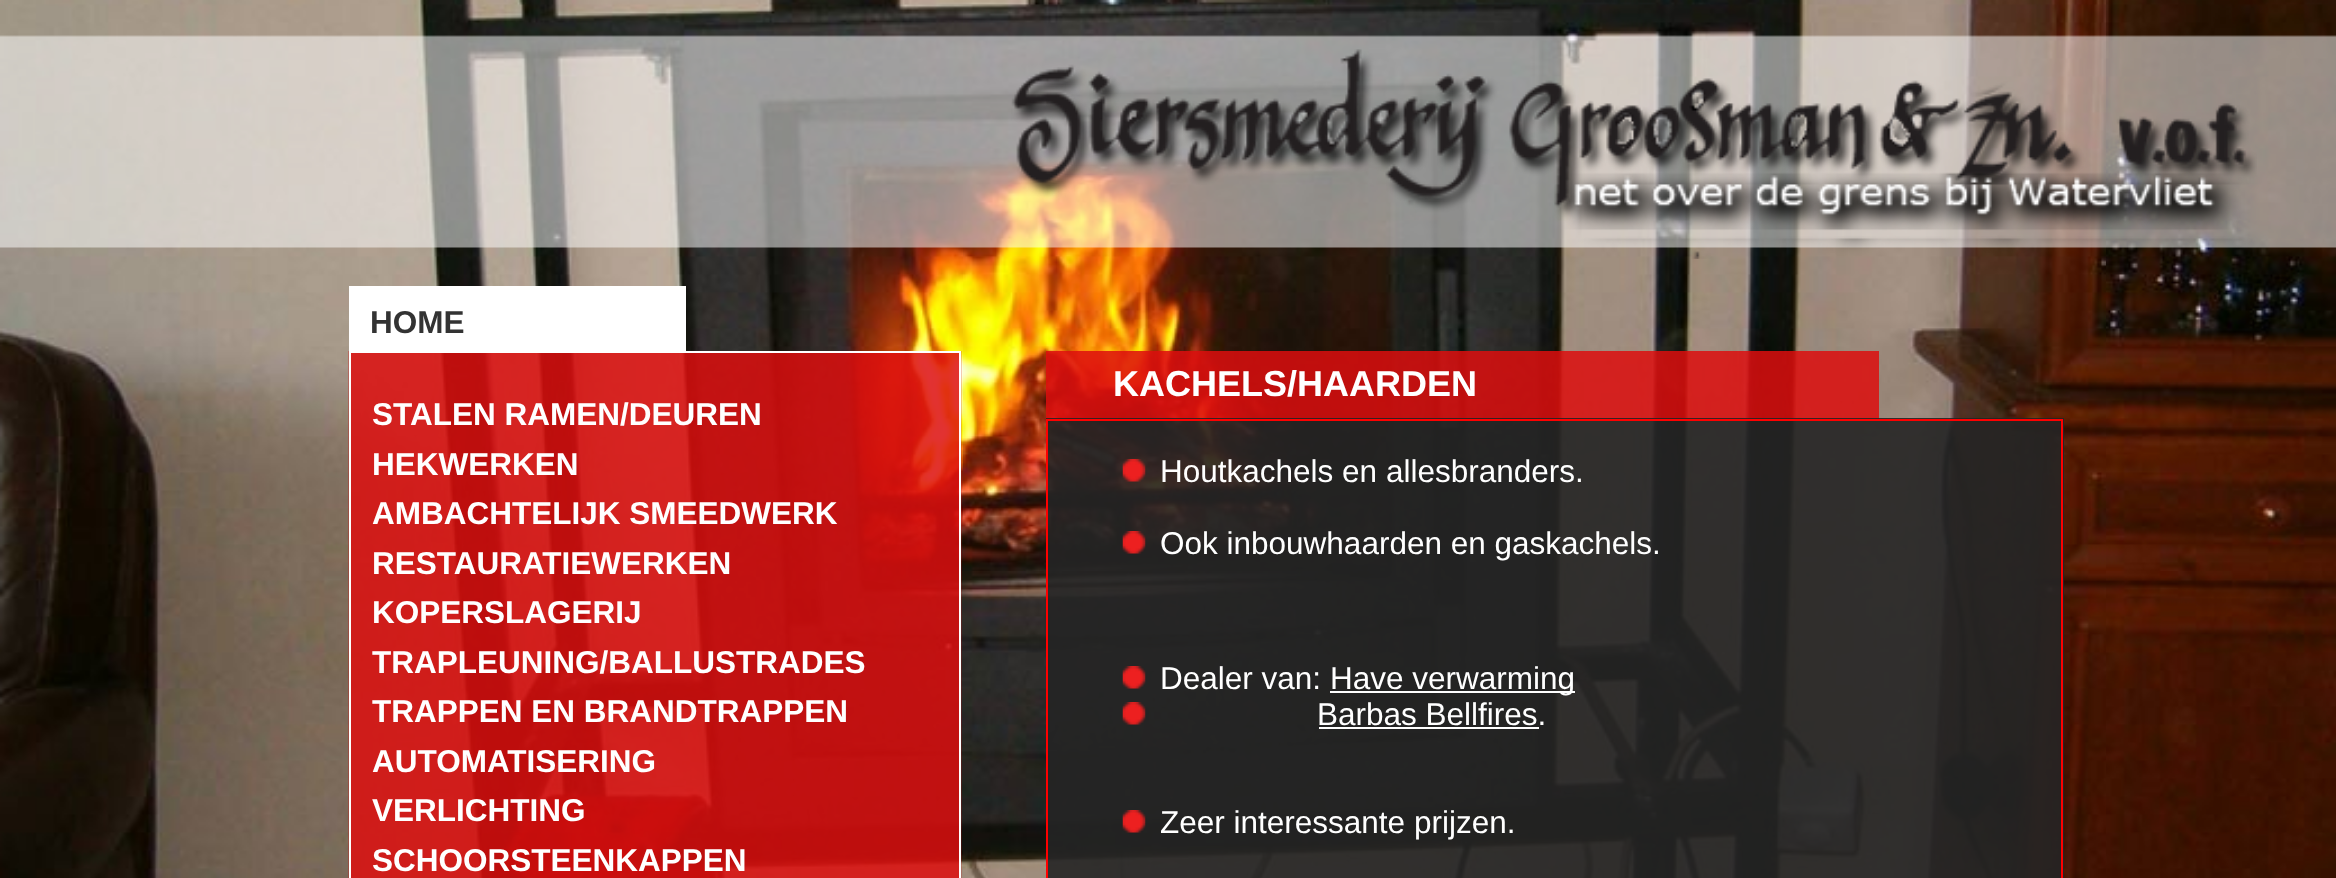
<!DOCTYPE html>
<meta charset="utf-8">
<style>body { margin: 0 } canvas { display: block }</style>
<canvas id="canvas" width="2336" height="878"></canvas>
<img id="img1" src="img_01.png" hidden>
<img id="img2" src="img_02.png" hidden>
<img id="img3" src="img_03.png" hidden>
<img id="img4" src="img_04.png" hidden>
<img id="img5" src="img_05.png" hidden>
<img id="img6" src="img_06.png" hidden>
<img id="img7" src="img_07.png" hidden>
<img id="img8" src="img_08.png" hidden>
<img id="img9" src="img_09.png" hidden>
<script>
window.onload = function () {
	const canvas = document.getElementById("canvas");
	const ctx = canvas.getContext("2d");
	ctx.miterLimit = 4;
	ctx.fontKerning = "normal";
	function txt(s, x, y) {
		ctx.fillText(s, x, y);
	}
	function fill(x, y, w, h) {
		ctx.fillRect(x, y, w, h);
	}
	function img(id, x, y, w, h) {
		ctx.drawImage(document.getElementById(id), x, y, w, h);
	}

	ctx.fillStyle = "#FFFFFF";
	fill(0, 0, 2336, 878);
	img("img1", 0, 0, 2336, 878);
	img("img2", 0, 35, 2336, 213);
	img("img3", 1011, 49, 1246, 210);
	img("img4", 348, 351, 614, 527);
	ctx.strokeStyle = "#FFFFFF";
	ctx.lineWidth = 2;
	ctx.strokeRect(350, 352, 610, 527);
	fill(349, 286, 337, 65);
	ctx.fillStyle = "rgba(221, 14, 14, 0.85)";
	fill(1046, 351, 833, 68);
	ctx.fillStyle = "rgba(37, 37, 37, 0.9)";
	fill(1046, 418, 1018, 460);
	ctx.strokeStyle = "#FF0000";
	ctx.strokeRect(1047, 420, 1015, 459);
	img("img5", 1122, 459, 24, 23);
	img("img6", 1122, 531, 24, 23);
	img("img7", 1122, 666, 24, 23);
	ctx.fillStyle = "#FFFFFF";
	fill(1330, 691, 245, 2);
	img("img8", 1122, 702, 24, 23);
	fill(1319, 727, 220, 2);
	img("img9", 1122, 810, 24, 23);
	ctx.font = "bold 31.5px Liberation Sans";
	ctx.fillStyle = "#333333";
	txt("HOME", 370, 333);
	ctx.fillStyle = "#FFFFFF";
	txt("STALEN RAMEN/DEUREN", 372, 425);
	txt("HEKWERKEN", 372, 475);
	txt("AMBACHTELIJK SMEEDWERK", 372, 524);
	txt("RESTAURATIEWERKEN", 372, 574);
	txt("KOPERSLAGERIJ", 372, 623);
	txt("TRAPLEUNING/BALLUSTRADES", 372, 673);
	txt("TRAPPEN EN BRANDTRAPPEN", 372, 722);
	txt("AUTOMATISERING", 372, 772);
	txt("VERLICHTING", 372, 821);
	txt("SCHOORSTEENKAPPEN", 372, 871);
	ctx.font = "bold 36px Liberation Sans";
	txt("KACHELS/HAARDEN", 1113, 396);
	ctx.font = "31.5px Liberation Sans";
	txt("Houtkachels en allesbranders.", 1160, 482);
	txt("Ook inbouwhaarden en gaskachels.", 1160, 554);
	txt("Dealer van:", 1160, 689);
	txt("Have verwarming", 1330, 689);
	txt("Barbas Bellfires.", 1317, 725);
	txt("Zeer interessante prijzen.", 1160, 833);
};
</script>
